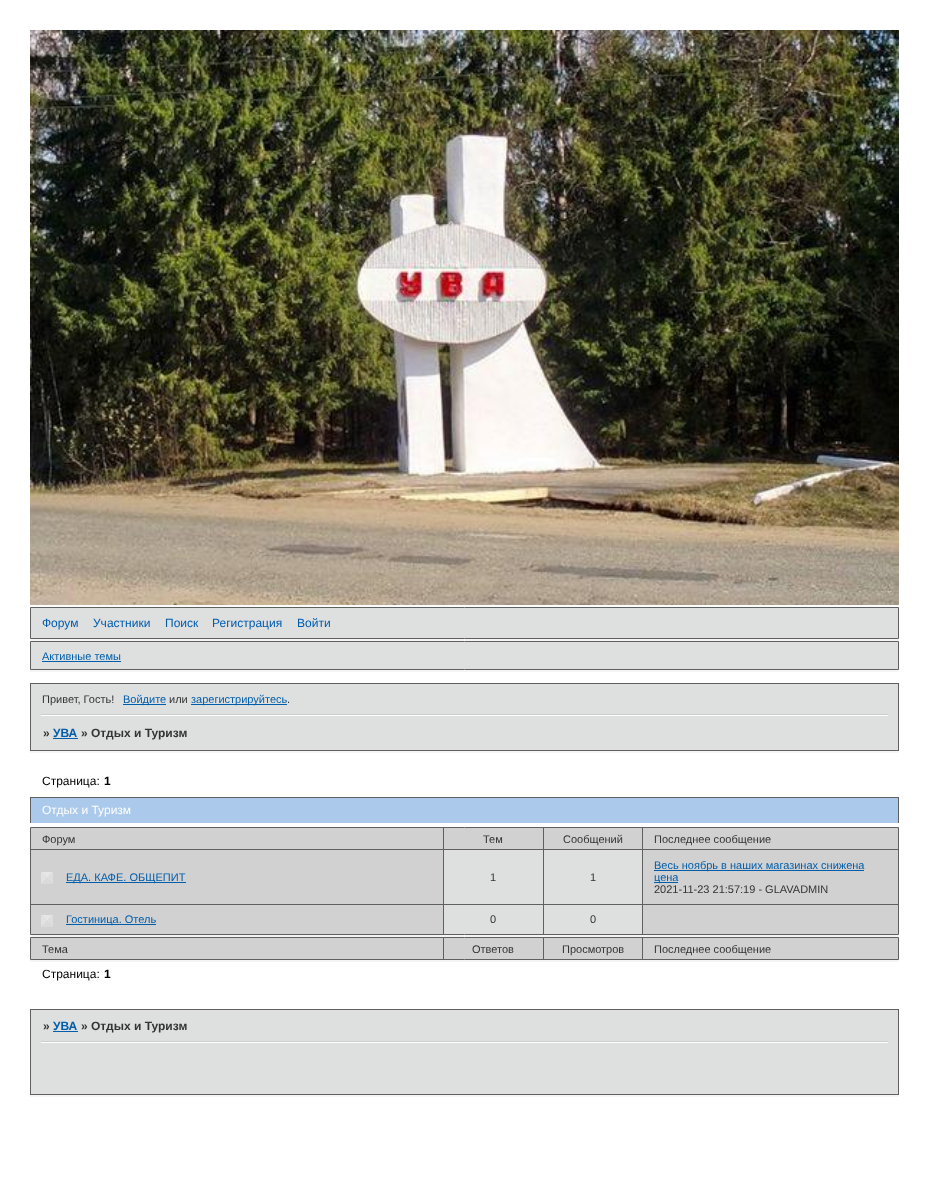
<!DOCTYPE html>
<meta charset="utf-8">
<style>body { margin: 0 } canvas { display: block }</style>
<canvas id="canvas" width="929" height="1199"></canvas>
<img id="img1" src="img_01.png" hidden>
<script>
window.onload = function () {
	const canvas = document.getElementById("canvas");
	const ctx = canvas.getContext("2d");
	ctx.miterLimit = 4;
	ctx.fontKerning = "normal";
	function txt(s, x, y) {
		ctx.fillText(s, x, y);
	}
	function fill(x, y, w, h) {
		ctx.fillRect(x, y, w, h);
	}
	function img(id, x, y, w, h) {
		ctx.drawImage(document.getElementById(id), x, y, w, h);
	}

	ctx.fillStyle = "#FFFFFF";
	fill(0, 0, 929, 1199);
	img("img1", 30, 30, 869, 575);
	ctx.fillStyle = "#F5F5F5";
	fill(30, 639, 869, 2);
	ctx.fillStyle = "#DEDFDF";
	ctx.beginPath();
	ctx.rect(30.5, 607.5, 868, 31);
	ctx.fill();
	ctx.strokeStyle = "#606060";
	ctx.stroke();
	ctx.fillStyle = "#F5F5F5";
	fill(30, 670, 869, 2);
	ctx.fillStyle = "#DEDFDF";
	ctx.beginPath();
	ctx.rect(30.5, 641.5, 868, 28);
	ctx.fill();
	ctx.stroke();
	ctx.fillStyle = "#005EAB";
	fill(42, 661, 79, 1);
	ctx.fillStyle = "#DEDFDF";
	fill(31, 684, 867, 66);
	ctx.fillStyle = "#606060";
	fill(30, 683, 869, 1);
	fill(898, 683, 1, 68);
	fill(30, 683, 1, 33);
	ctx.fillStyle = "#005EAB";
	fill(123, 704, 43, 1);
	fill(191, 704, 96, 1);
	ctx.fillStyle = "#CCCCCC";
	fill(41, 714, 847, 1);
	ctx.fillStyle = "#FFFFFF";
	fill(41, 715, 847, 1);
	ctx.fillStyle = "#F5F5F5";
	fill(30, 751, 869, 2);
	ctx.fillStyle = "#606060";
	fill(30, 750, 869, 1);
	fill(30, 714, 1, 37);
	ctx.fillStyle = "#005EAB";
	fill(53, 738, 25, 1);
	ctx.fillStyle = "#AAC9EB";
	fill(31, 798, 867, 25);
	ctx.fillStyle = "#606060";
	fill(30, 797, 869, 1);
	fill(898, 797, 1, 26);
	fill(30, 797, 1, 26);
	ctx.fillStyle = "#F5F5F5";
	fill(30, 935, 869, 2);
	ctx.fillStyle = "#D1D1D1";
	ctx.beginPath();
	ctx.rect(30.5, 827.5, 868, 107);
	ctx.fill();
	ctx.stroke();
	ctx.fillStyle = "#606060";
	fill(443, 828, 1, 21);
	fill(543, 828, 1, 21);
	fill(31, 849, 867, 1);
	fill(31, 904, 867, 1);
	fill(642, 828, 1, 106);
	ctx.fillStyle = "#E6E6E6";
	ctx.beginPath();
	ctx.moveTo(41, 872);
	ctx.lineTo(53, 872);
	ctx.lineTo(47, 878);
	ctx.closePath();
	ctx.fill();
	ctx.fillStyle = "#DEDEDE";
	ctx.beginPath();
	ctx.moveTo(53, 872);
	ctx.lineTo(53, 884);
	ctx.lineTo(47, 878);
	ctx.closePath();
	ctx.fill();
	ctx.fillStyle = "#DADADA";
	ctx.beginPath();
	ctx.moveTo(53, 884);
	ctx.lineTo(41, 884);
	ctx.lineTo(47, 878);
	ctx.closePath();
	ctx.fill();
	ctx.fillStyle = "#E2E2E2";
	ctx.beginPath();
	ctx.moveTo(41, 884);
	ctx.lineTo(41, 872);
	ctx.lineTo(47, 878);
	ctx.closePath();
	ctx.fill();
	ctx.fillStyle = "#005EAB";
	fill(66, 882, 120, 1);
	ctx.fillStyle = "#DEDFDF";
	fill(444, 850, 99, 54);
	ctx.fillStyle = "#606060";
	fill(443, 849, 1, 55);
	ctx.fillStyle = "#DEDFDF";
	fill(544, 850, 98, 54);
	ctx.fillStyle = "#606060";
	fill(543, 849, 1, 55);
	ctx.fillStyle = "#005EAB";
	fill(654, 870, 210, 1);
	fill(654, 882, 24, 1);
	ctx.fillStyle = "#E6E6E6";
	ctx.beginPath();
	ctx.moveTo(41, 915);
	ctx.lineTo(53, 915);
	ctx.lineTo(47, 921);
	ctx.closePath();
	ctx.fill();
	ctx.fillStyle = "#DEDEDE";
	ctx.beginPath();
	ctx.moveTo(53, 915);
	ctx.lineTo(53, 927);
	ctx.lineTo(47, 921);
	ctx.closePath();
	ctx.fill();
	ctx.fillStyle = "#DADADA";
	ctx.beginPath();
	ctx.moveTo(53, 927);
	ctx.lineTo(41, 927);
	ctx.lineTo(47, 921);
	ctx.closePath();
	ctx.fill();
	ctx.fillStyle = "#E2E2E2";
	ctx.beginPath();
	ctx.moveTo(41, 927);
	ctx.lineTo(41, 915);
	ctx.lineTo(47, 921);
	ctx.closePath();
	ctx.fill();
	ctx.fillStyle = "#005EAB";
	fill(66, 924, 90, 1);
	ctx.fillStyle = "#DEDFDF";
	fill(444, 905, 99, 29);
	ctx.fillStyle = "#606060";
	fill(443, 904, 1, 30);
	ctx.fillStyle = "#DEDFDF";
	fill(544, 905, 98, 29);
	ctx.fillStyle = "#606060";
	fill(543, 904, 1, 30);
	ctx.fillStyle = "#F5F5F5";
	fill(30, 960, 869, 2);
	ctx.fillStyle = "#D1D1D1";
	ctx.beginPath();
	ctx.rect(30.5, 937.5, 868, 22);
	ctx.fill();
	ctx.stroke();
	ctx.fillStyle = "#606060";
	fill(443, 938, 1, 21);
	fill(543, 938, 1, 21);
	fill(642, 938, 1, 21);
	ctx.fillStyle = "#F5F5F5";
	fill(30, 1095, 869, 2);
	ctx.fillStyle = "#DEDFDF";
	fill(31, 1010, 867, 84);
	ctx.fillStyle = "#606060";
	fill(898, 1041, 1, 54);
	fill(30, 1094, 869, 1);
	fill(30, 1041, 1, 54);
	fill(30, 1009, 869, 1);
	fill(898, 1009, 1, 34);
	fill(30, 1009, 1, 34);
	ctx.fillStyle = "#005EAB";
	fill(53, 1031, 25, 1);
	ctx.fillStyle = "#CCCCCC";
	fill(41, 1041, 847, 1);
	ctx.fillStyle = "#FFFFFF";
	fill(41, 1042, 847, 1);
	ctx.font = "12px Liberation Sans";
	ctx.fillStyle = "#005CB1";
	txt("Форум", 42, 627);
	txt("Участники", 93, 627);
	txt("Поиск", 165, 627);
	txt("Регистрация", 212, 627);
	txt("Войти", 297, 627);
	ctx.font = "11px Liberation Sans";
	ctx.fillStyle = "#005EAB";
	txt("Активные темы", 42, 660);
	ctx.fillStyle = "#333333";
	txt("Привет, Гость!", 42, 703);
	ctx.fillStyle = "#005EAB";
	txt("Войдите", 123, 703);
	ctx.fillStyle = "#333333";
	txt("или", 169, 703);
	ctx.fillStyle = "#005EAB";
	txt("зарегистрируйтесь", 191, 703);
	ctx.fillStyle = "#333333";
	txt(".", 287, 703);
	ctx.font = "bold 12px Liberation Sans";
	txt("»", 43, 737);
	ctx.fillStyle = "#005EAB";
	txt("УВА", 53, 737);
	ctx.fillStyle = "#333333";
	txt("» Отдых и Туризм", 81, 737);
	ctx.font = "12px Liberation Sans";
	ctx.fillStyle = "#000000";
	txt("Страница:", 42, 785);
	ctx.font = "bold 12px Liberation Sans";
	txt("1", 104, 785);
	ctx.font = "12px Liberation Sans";
	ctx.fillStyle = "#FFFFFF";
	txt("Отдых и Туризм", 42, 814);
	ctx.font = "11px Liberation Sans";
	ctx.fillStyle = "#333333";
	txt("Форум", 42, 843);
	txt("Тем", 483, 843);
	txt("Сообщений", 563, 843);
	txt("Последнее сообщение", 654, 843);
	ctx.fillStyle = "#005EAB";
	txt("ЕДА. КАФЕ. ОБЩЕПИТ", 66, 881);
	ctx.fillStyle = "#333333";
	txt("1", 490, 881);
	txt("1", 590, 881);
	ctx.fillStyle = "#005EAB";
	txt("Весь ноябрь в наших магазинах снижена", 654, 869);
	txt("цена", 654, 881);
	ctx.fillStyle = "#333333";
	txt("2021-11-23 21:57:19 - GLAVADMIN", 654, 893);
	ctx.fillStyle = "#005EAB";
	txt("Гостиница. Отель", 66, 923);
	ctx.fillStyle = "#333333";
	txt("0", 490, 923);
	txt("0", 590, 923);
	txt("Тема", 42, 953);
	txt("Ответов", 472, 953);
	txt("Просмотров", 562, 953);
	txt("Последнее сообщение", 654, 953);
	ctx.font = "12px Liberation Sans";
	ctx.fillStyle = "#000000";
	txt("Страница:", 42, 978);
	ctx.font = "bold 12px Liberation Sans";
	txt("1", 104, 978);
	ctx.fillStyle = "#333333";
	txt("»", 43, 1030);
	ctx.fillStyle = "#005EAB";
	txt("УВА", 53, 1030);
	ctx.fillStyle = "#333333";
	txt("» Отдых и Туризм", 81, 1030);
};
</script>
